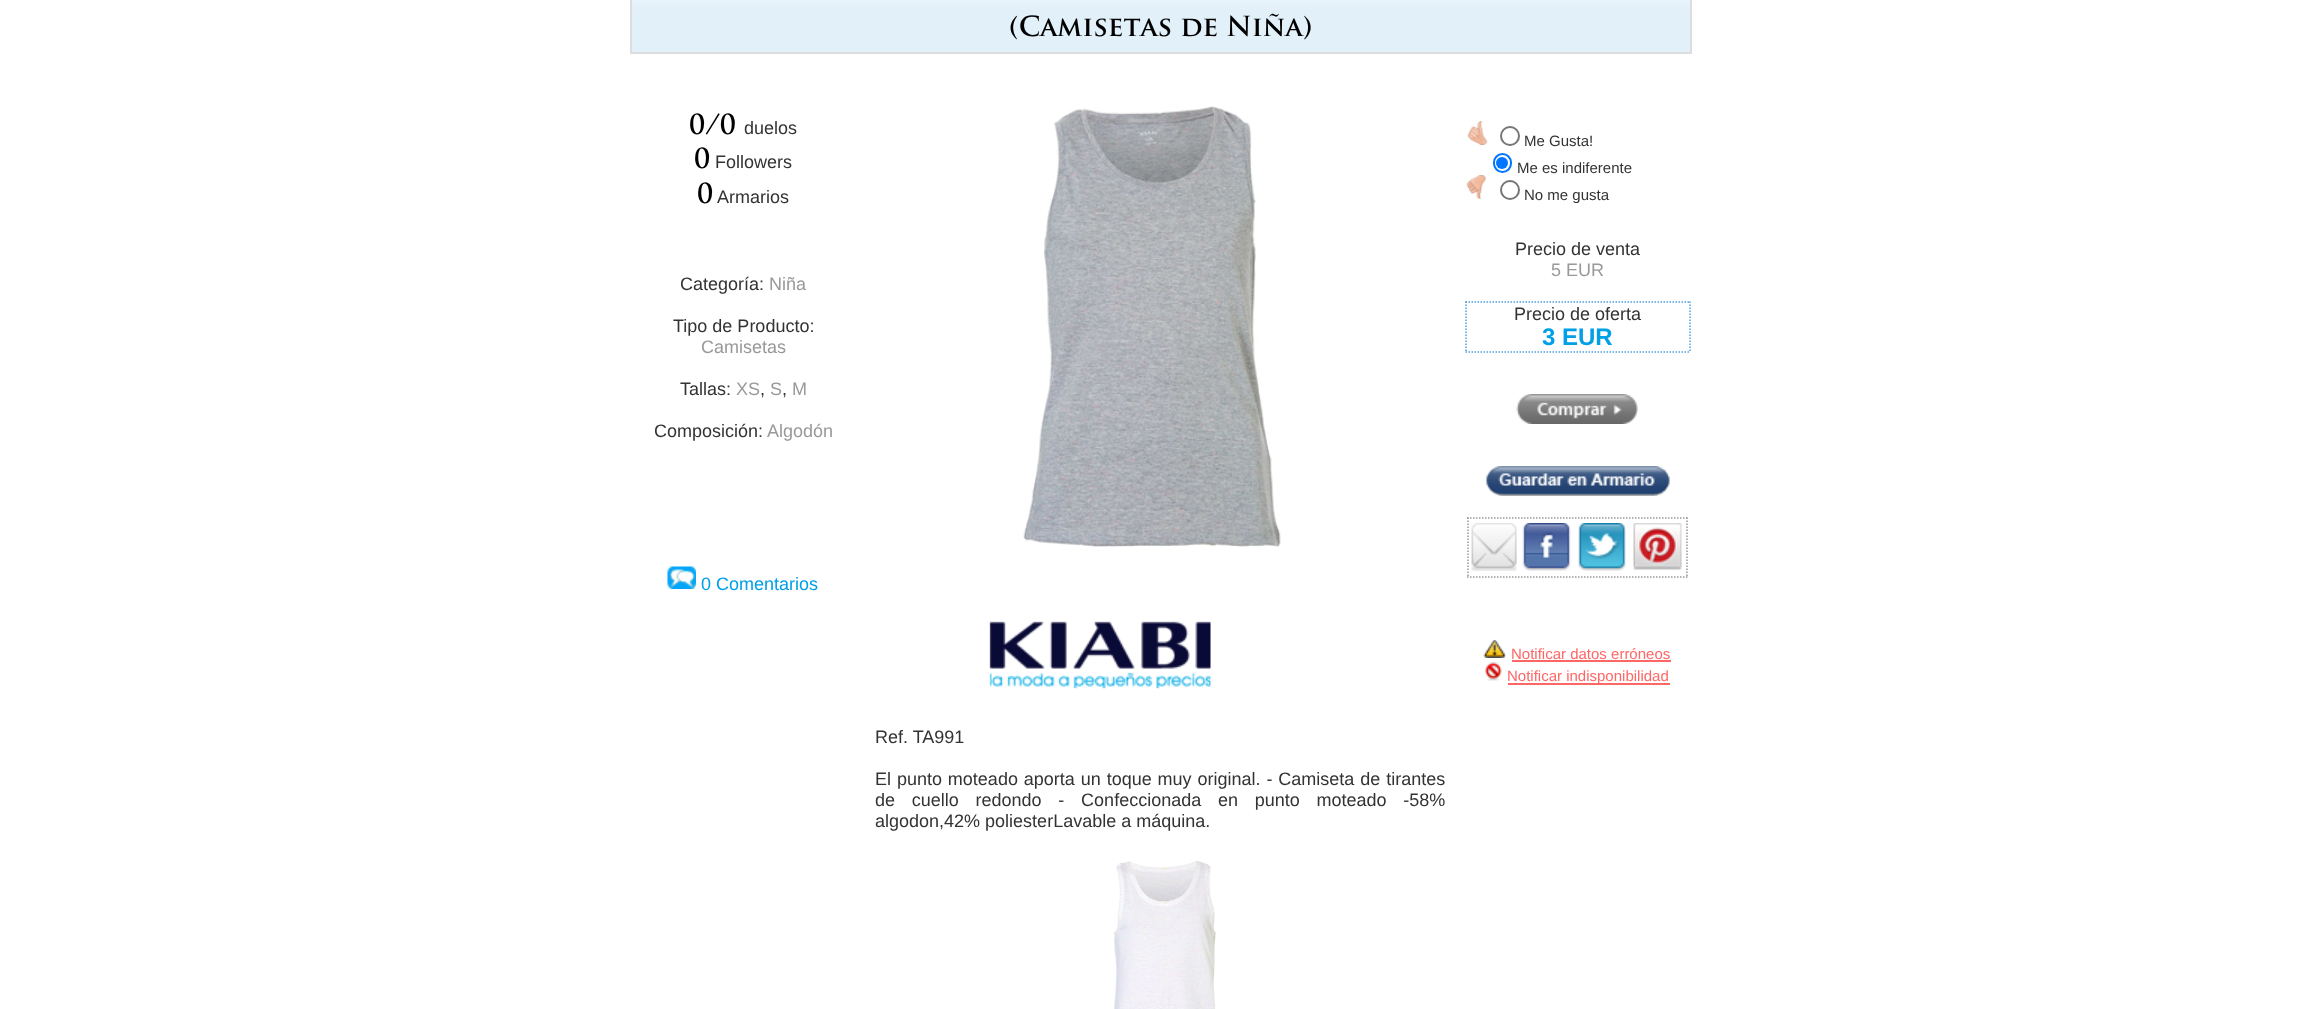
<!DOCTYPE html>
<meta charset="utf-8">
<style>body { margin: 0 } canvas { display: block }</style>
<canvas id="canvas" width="2320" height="1009"></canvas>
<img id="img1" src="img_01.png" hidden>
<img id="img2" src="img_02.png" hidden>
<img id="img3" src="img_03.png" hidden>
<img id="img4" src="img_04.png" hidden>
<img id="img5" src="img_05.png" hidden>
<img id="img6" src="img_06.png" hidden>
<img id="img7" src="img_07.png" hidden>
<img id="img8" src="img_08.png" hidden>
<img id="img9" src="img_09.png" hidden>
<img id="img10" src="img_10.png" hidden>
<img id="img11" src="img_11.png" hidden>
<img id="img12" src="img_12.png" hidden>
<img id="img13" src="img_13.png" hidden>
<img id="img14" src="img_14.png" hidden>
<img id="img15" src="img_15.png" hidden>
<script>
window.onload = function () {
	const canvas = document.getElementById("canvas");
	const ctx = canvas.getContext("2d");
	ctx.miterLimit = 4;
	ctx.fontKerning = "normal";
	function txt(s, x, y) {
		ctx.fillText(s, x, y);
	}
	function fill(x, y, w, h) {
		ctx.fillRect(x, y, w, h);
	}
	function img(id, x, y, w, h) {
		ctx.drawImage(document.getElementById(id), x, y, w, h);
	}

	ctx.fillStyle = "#FFFFFF";
	fill(0, 0, 2320, 1009);
	img("img1", 632, 0, 1058, 52);
	ctx.strokeStyle = "#DDDDDD";
	ctx.lineWidth = 2;
	ctx.strokeRect(631, -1, 1060, 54);
	img("img2", 667, 566, 29, 23);
	img("img3", 1467, 121, 21, 24);
	ctx.beginPath();
	ctx.arc(1510, 136, 9, 0, Math.PI * 2);
	ctx.strokeStyle = "#767676";
	ctx.stroke();
	ctx.beginPath();
	ctx.roundRect(1494, 154, 17, 18, 8.5);
	ctx.strokeStyle = "#0075FF";
	ctx.stroke();
	ctx.fillStyle = "#0075FF";
	ctx.beginPath();
	ctx.arc(1502, 163, 6, 0, Math.PI * 2);
	ctx.fill();
	img("img4", 1466, 175, 20, 24);
	ctx.beginPath();
	ctx.arc(1510, 190, 9, 0, Math.PI * 2);
	ctx.strokeStyle = "#767676";
	ctx.stroke();
	ctx.beginPath();
	ctx.moveTo(1465.5, 302);
	ctx.lineTo(1690.5, 302);
	ctx.strokeStyle = "#4BA0E4";
	ctx.lineWidth = 1.5;
	ctx.setLineDash([1.5, 1.5]);
	ctx.stroke();
	ctx.beginPath();
	ctx.moveTo(1690, 301.5);
	ctx.lineTo(1690, 352.5);
	ctx.stroke();
	ctx.beginPath();
	ctx.moveTo(1465.5, 352);
	ctx.lineTo(1690.5, 352);
	ctx.stroke();
	ctx.beginPath();
	ctx.moveTo(1466, 301.5);
	ctx.lineTo(1466, 352.5);
	ctx.stroke();
	img("img5", 1516, 394, 122, 30);
	img("img6", 1486, 466, 184, 30);
	ctx.beginPath();
	ctx.moveTo(1467, 518);
	ctx.lineTo(1687.5, 518);
	ctx.strokeStyle = "#999999";
	ctx.stroke();
	ctx.beginPath();
	ctx.moveTo(1687, 517.5);
	ctx.lineTo(1687, 577.5);
	ctx.stroke();
	ctx.beginPath();
	ctx.moveTo(1467, 577);
	ctx.lineTo(1687.5, 577);
	ctx.stroke();
	ctx.beginPath();
	ctx.moveTo(1468, 517.5);
	ctx.lineTo(1468, 577.5);
	ctx.stroke();
	img("img7", 1471, 523, 46, 48);
	img("img8", 1522, 523, 49, 48);
	img("img9", 1578, 523, 48, 48);
	img("img10", 1633, 523, 49, 47);
	img("img11", 1483, 640, 23, 18);
	ctx.fillStyle = "#FF6666";
	fill(1512, 660, 159, 2);
	img("img12", 1485, 662, 17, 19);
	fill(1508, 683, 162, 2);
	img("img13", 1023, 106, 258, 441);
	img("img14", 989, 621, 222, 68);
	img("img15", 1114, 861, 102, 148);
	ctx.font = "bold 27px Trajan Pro";
	ctx.fillStyle = "#000000";
	txt("(Camisetas de Niña)", 1009, 36);
	txt("0/0", 689, 134);
	ctx.font = "18px Liberation Sans";
	ctx.fillStyle = "#333333";
	txt("duelos", 744, 134);
	ctx.font = "bold 27px Trajan Pro";
	ctx.fillStyle = "#000000";
	txt("0", 694, 168);
	ctx.font = "18px Liberation Sans";
	ctx.fillStyle = "#333333";
	txt("Followers", 715, 168);
	ctx.font = "bold 27px Trajan Pro";
	ctx.fillStyle = "#000000";
	txt("0", 697, 203);
	ctx.font = "18px Liberation Sans";
	ctx.fillStyle = "#333333";
	txt("Armarios", 717, 203);
	txt("Categoría:", 680, 290);
	ctx.fillStyle = "#999999";
	txt("Niña", 769, 290);
	ctx.fillStyle = "#333333";
	txt("Tipo de Producto:", 673, 332);
	ctx.fillStyle = "#999999";
	txt("Camisetas", 701, 353);
	ctx.fillStyle = "#333333";
	txt("Tallas:", 680, 395);
	ctx.fillStyle = "#999999";
	txt("XS", 736, 395);
	txt("S", 770, 395);
	txt("M", 792, 395);
	ctx.fillStyle = "#333333";
	txt(",", 760, 395);
	txt(",", 782, 395);
	txt("Composición:", 654, 437);
	ctx.fillStyle = "#999999";
	txt("Algodón", 767, 437);
	ctx.fillStyle = "#00A0E7";
	txt("0 Comentarios", 701, 590);
	ctx.font = "15px Liberation Sans";
	ctx.fillStyle = "#333333";
	txt("Me Gusta!", 1524, 146);
	txt("Me es indiferente", 1517, 173);
	txt("No me gusta", 1524, 200);
	ctx.font = "18px Liberation Sans";
	txt("Precio de venta", 1515, 255);
	ctx.fillStyle = "#999999";
	txt("5 EUR", 1551, 276);
	ctx.fillStyle = "#333333";
	txt("Precio de oferta", 1514, 320);
	ctx.font = "bold 24px Liberation Sans";
	ctx.fillStyle = "#00A0E7";
	txt("3 EUR", 1542, 345);
	ctx.font = "15px Liberation Sans";
	ctx.fillStyle = "#FF6666";
	txt("Notificar datos erróneos", 1511, 659);
	txt("Notificar indisponibilidad", 1507, 681);
	ctx.font = "18px Liberation Sans";
	ctx.fillStyle = "#333333";
	txt("Ref. TA991", 875, 743);
	ctx.wordSpacing = "0.9px";
	txt("El punto moteado aporta un toque muy original. - Camiseta de tirantes", 875, 785);
	ctx.wordSpacing = "11.75px";
	txt("de cuello redondo - Confeccionada en punto moteado -58%", 875, 806);
	ctx.wordSpacing = "0px";
	txt("algodon,42% poliesterLavable a máquina.", 875, 827);
};
</script>
